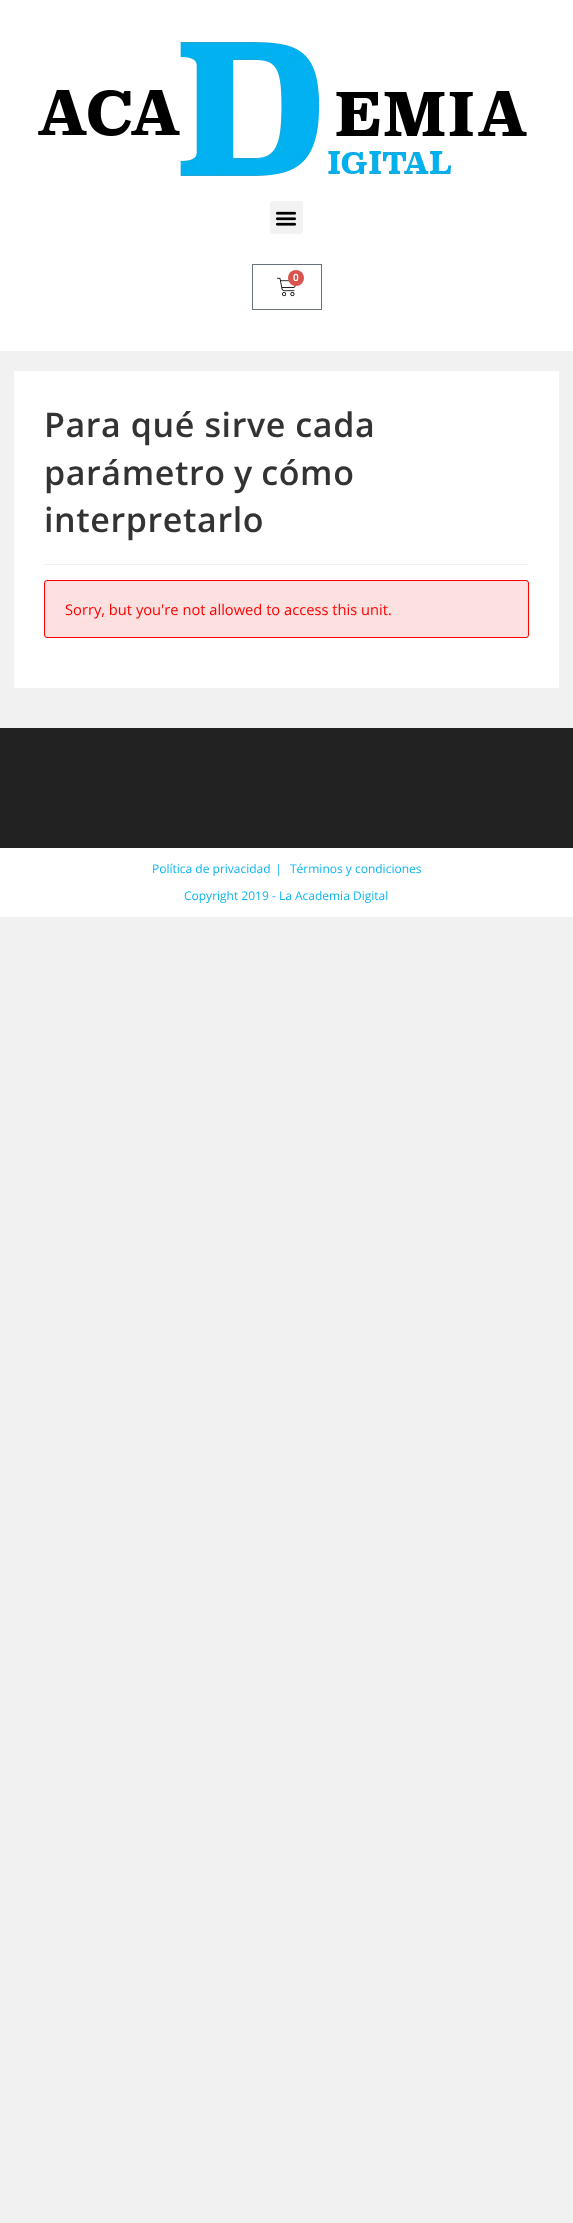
<!DOCTYPE html>
<meta charset="utf-8">
<style>body { margin: 0 } canvas { display: block }</style>
<canvas id="canvas" width="573" height="2223"></canvas>
<img id="img1" src="img_01.png" hidden>
<img id="img2" src="img_02.png" hidden>
<img id="img3" src="img_03.png" hidden>
<script>
window.onload = function () {
	const canvas = document.getElementById("canvas");
	const ctx = canvas.getContext("2d");
	ctx.miterLimit = 4;
	ctx.fontKerning = "normal";
	function txt(s, x, y) {
		ctx.fillText(s, x, y);
	}
	function fill(x, y, w, h) {
		ctx.fillRect(x, y, w, h);
	}
	function round(x, y, w, h, r) {
		ctx.beginPath();
		ctx.roundRect(x, y, w, h, r);
		ctx.fill();
	}
	function img(id, x, y, w, h) {
		ctx.drawImage(document.getElementById(id), x, y, w, h);
	}

	ctx.fillStyle = "#F1F1F1";
	fill(0, 0, 573, 2223);
	ctx.fillStyle = "#FFFFFF";
	fill(0, 0, 573, 351);
	img("img1", 38, 42, 489, 134);
	ctx.fillStyle = "#F2F2F2";
	round(270, 201, 33, 33, 3);
	img("img2", 275, 211, 22, 15);
	ctx.strokeStyle = "#69727D";
	ctx.strokeRect(252.5, 264.5, 69, 45);
	img("img3", 277, 277, 19, 20);
	ctx.fillStyle = "#D9534F";
	ctx.beginPath();
	ctx.arc(296, 278, 8, 0, Math.PI * 2);
	ctx.fill();
	ctx.fillStyle = "#FFFFFF";
	fill(14, 371, 545, 317);
	ctx.fillStyle = "#F1F1F1";
	fill(44, 564, 485, 1);
	ctx.fillStyle = "#FDE0E0";
	ctx.beginPath();
	ctx.roundRect(44.5, 580.5, 484, 57, 2.5);
	ctx.fill();
	ctx.strokeStyle = "#FF0000";
	ctx.stroke();
	ctx.fillStyle = "#222222";
	fill(0, 728, 573, 120);
	ctx.fillStyle = "#FFFFFF";
	fill(0, 848, 573, 69);
	ctx.font = "600 10px Roboto";
	txt("0", 293, 281);
	ctx.letterSpacing = "0.6px";
	ctx.font = "600 34px Open Sans";
	ctx.fillStyle = "#333333";
	txt("Para qué sirve cada", 44, 437);
	ctx.wordSpacing = "-1px";
	txt("parámetro y cómo", 44, 485);
	ctx.wordSpacing = "0px";
	txt("interpretarlo", 44, 532);
	ctx.letterSpacing = "0px";
	ctx.font = "14.7px Open Sans";
	ctx.fillStyle = "#FF0000";
	txt("Sorry, but you're not allowed to access this unit.", 65, 615);
	ctx.font = "12px Open Sans";
	ctx.fillStyle = "#0DB5F1";
	txt("Política de privacidad", 152, 873);
	txt("|", 275, 873);
	txt("Términos y condiciones", 290, 873);
	txt("Copyright 2019 - La Academia Digital", 184, 900);
};
</script>
